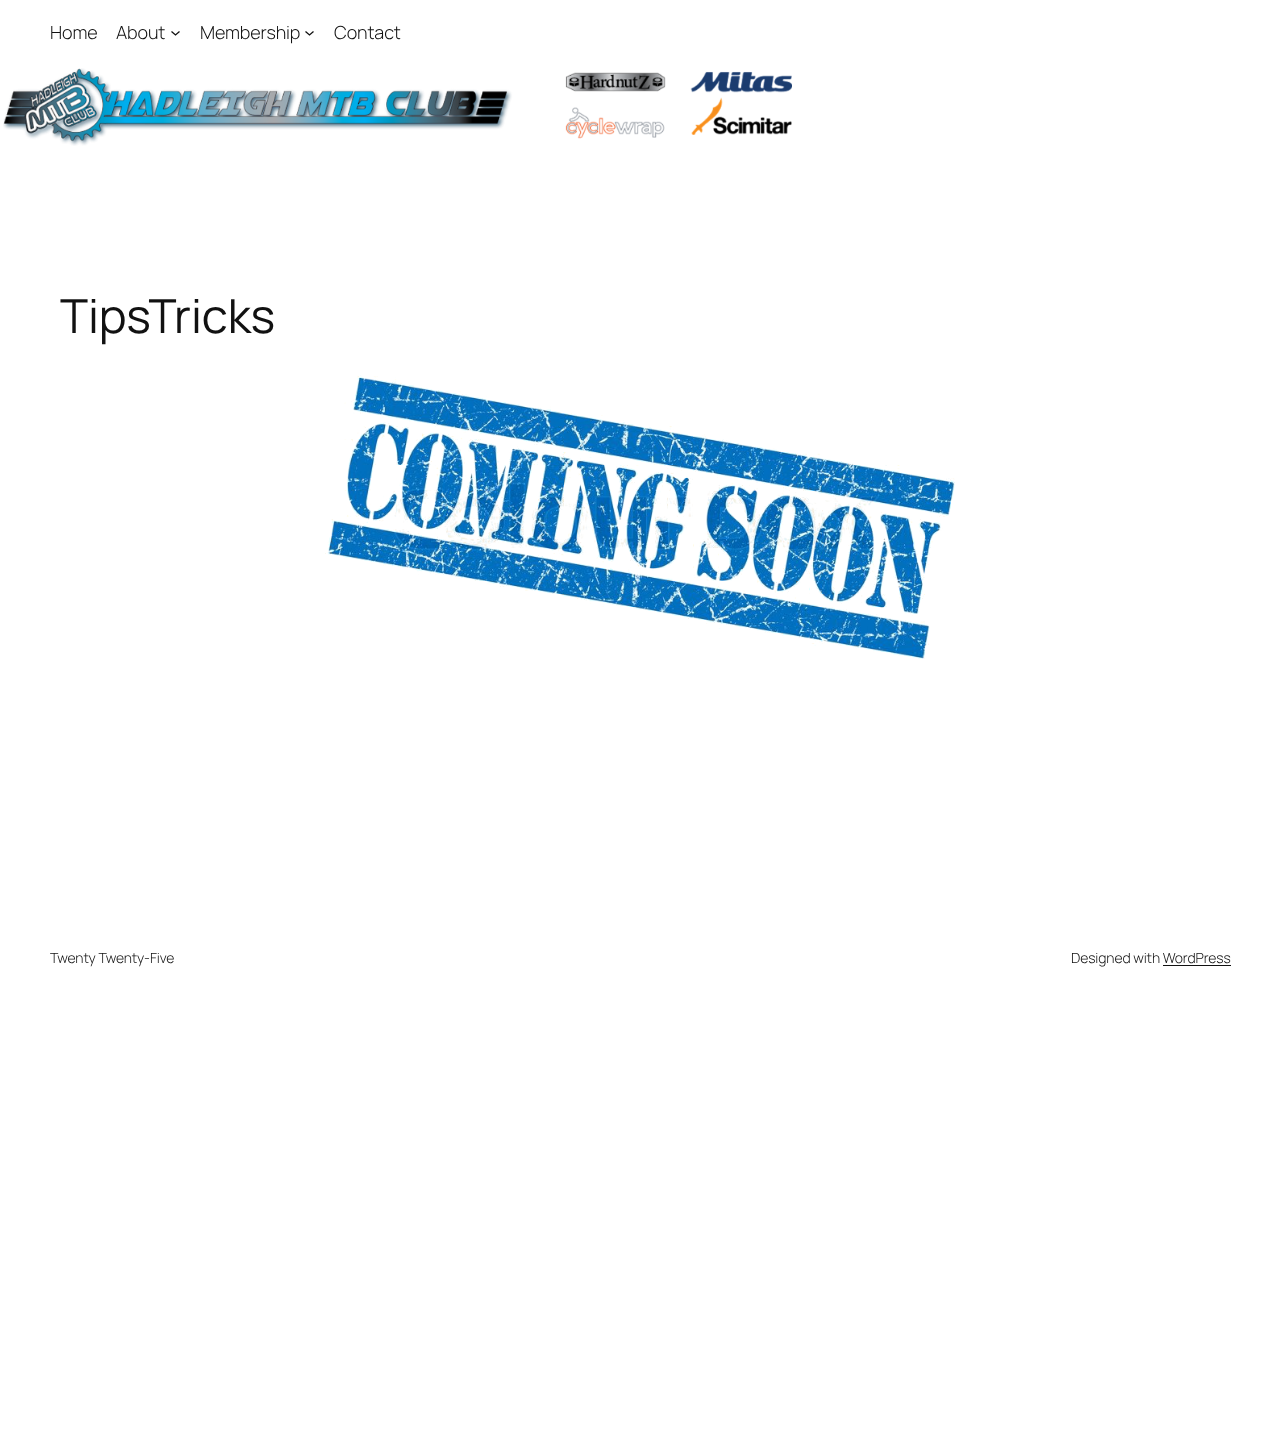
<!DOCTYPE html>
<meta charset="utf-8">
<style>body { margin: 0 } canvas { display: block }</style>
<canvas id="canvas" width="1281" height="1434"></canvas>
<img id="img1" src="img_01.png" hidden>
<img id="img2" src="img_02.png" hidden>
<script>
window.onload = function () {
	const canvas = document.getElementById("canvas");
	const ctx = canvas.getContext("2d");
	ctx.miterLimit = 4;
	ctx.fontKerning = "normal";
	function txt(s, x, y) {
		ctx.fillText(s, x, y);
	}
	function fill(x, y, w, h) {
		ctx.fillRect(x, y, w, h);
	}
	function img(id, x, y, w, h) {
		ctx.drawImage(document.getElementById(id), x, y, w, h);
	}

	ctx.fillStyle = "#FFFFFF";
	fill(0, 0, 1281, 1434);
	ctx.beginPath();
	ctx.moveTo(171.5, 31.5);
	ctx.lineTo(175.5, 35);
	ctx.lineTo(179.5, 31.5);
	ctx.strokeStyle = "#111111";
	ctx.lineWidth = 1.3;
	ctx.stroke();
	ctx.beginPath();
	ctx.moveTo(305.5, 31.5);
	ctx.lineTo(309.5, 35);
	ctx.lineTo(313.5, 31.5);
	ctx.stroke();
	img("img1", 3, 68, 789, 78);
	img("img2", 325, 375, 630, 284);
	ctx.fillStyle = "#111111";
	fill(1163, 965, 68, 1);
	ctx.letterSpacing = "-0.1px";
	ctx.font = "300 18px Manrope";
	txt("Home", 50, 39);
	txt("About", 116, 39);
	txt("Membership", 200, 39);
	txt("Contact", 334, 39);
	ctx.font = "47px Manrope";
	txt("TipsTricks", 60, 333);
	ctx.font = "300 14px Manrope";
	txt("Twenty Twenty-Five", 50, 963);
	txt("Designed with WordPress", 1071, 963);
};
</script>
